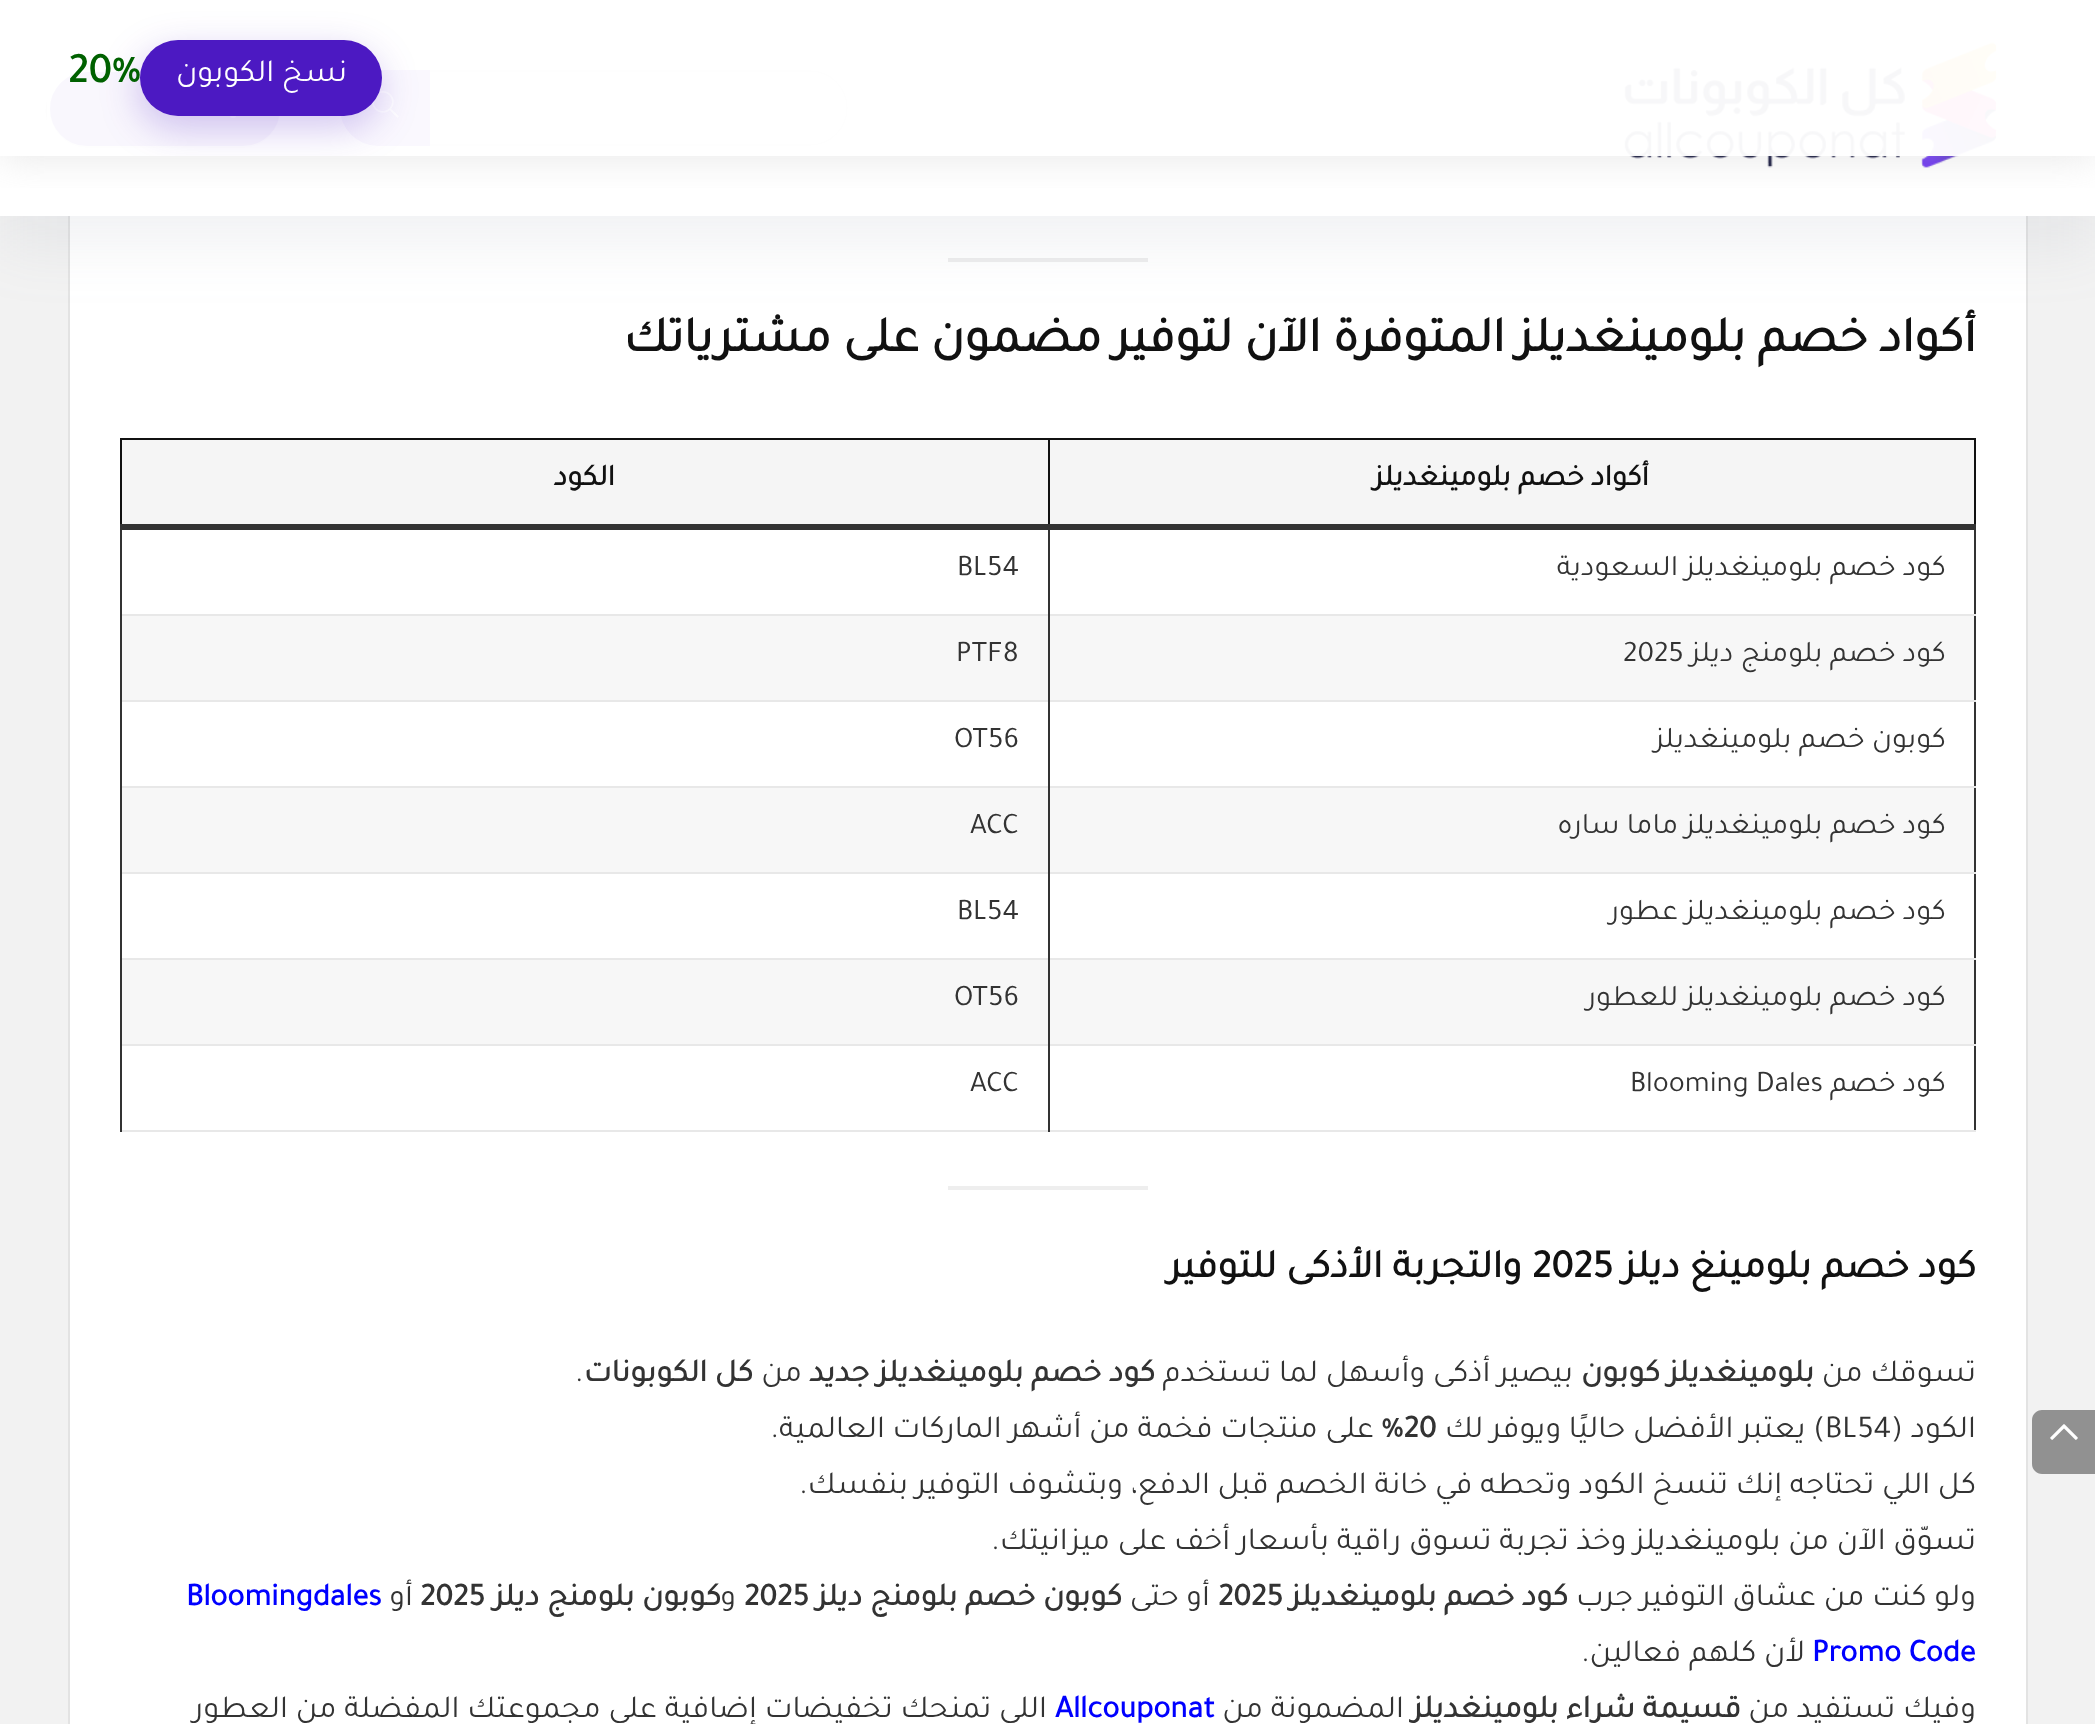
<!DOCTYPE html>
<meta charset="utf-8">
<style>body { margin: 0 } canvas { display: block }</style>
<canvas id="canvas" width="2095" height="1724"></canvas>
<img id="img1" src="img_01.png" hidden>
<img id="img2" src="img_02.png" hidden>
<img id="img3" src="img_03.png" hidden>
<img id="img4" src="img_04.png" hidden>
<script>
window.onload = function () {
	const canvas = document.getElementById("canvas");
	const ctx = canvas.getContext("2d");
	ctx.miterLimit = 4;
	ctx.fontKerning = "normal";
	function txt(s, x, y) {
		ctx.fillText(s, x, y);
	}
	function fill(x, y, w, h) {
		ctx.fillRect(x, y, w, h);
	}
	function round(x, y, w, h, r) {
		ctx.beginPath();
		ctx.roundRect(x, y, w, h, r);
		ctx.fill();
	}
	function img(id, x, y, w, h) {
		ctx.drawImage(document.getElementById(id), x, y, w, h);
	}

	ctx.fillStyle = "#F2F2F2";
	fill(0, 0, 2095, 1724);
	ctx.fillStyle = "#919191";
	ctx.beginPath();
	ctx.moveTo(2042, 1410);
	ctx.lineTo(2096, 1410);
	ctx.lineTo(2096, 1474);
	ctx.lineTo(2042, 1474);
	ctx.bezierCurveTo(2036.5, 1474, 2032, 1469.5, 2032, 1464);
	ctx.lineTo(2032, 1420);
	ctx.bezierCurveTo(2032, 1414.5, 2036.5, 1410, 2042, 1410);
	ctx.closePath();
	ctx.fill();
	img("img1", 2050, 1424, 28, 16);
	ctx.fillStyle = "#FFFFFF";
	fill(70, 216, 1956, 1508);
	ctx.strokeStyle = "#E3E3E3";
	ctx.lineWidth = 2;
	ctx.strokeRect(69, -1, 1958, 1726);
	ctx.fillStyle = "#EEEEEE";
	fill(948, 258, 200, 4);
	ctx.fillStyle = "rgba(119, 123, 146, 0.1)";
	ctx.filter = "blur(30px)";
	ctx.beginPath();
	ctx.rect(0, 30, 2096, 216);
	ctx.fill();
	ctx.filter = "none";
	ctx.fillStyle = "#FFFFFF";
	fill(0, 0, 2095, 216);
	img("img2", 1624, 42, 373, 126);
	ctx.fillStyle = "#EBEBEB";
	fill(1022, 70, 2, 76);
	ctx.beginPath();
	ctx.roundRect(341, 71, 506, 74, 37);
	ctx.strokeStyle = "#E1E1E1";
	ctx.stroke();
	ctx.fillStyle = "#561DDD";
	ctx.beginPath();
	ctx.roundRect(340, 70, 90, 76, [38, 0, 0, 38]);
	ctx.fill();
	img("img3", 372, 91, 27, 27);
	ctx.fillStyle = "rgba(0, 0, 0, 0.2)";
	ctx.filter = "blur(2px)";
	ctx.beginPath();
	ctx.roundRect(50, 74, 230, 74, 37);
	ctx.fill();
	ctx.filter = "none";
	ctx.fillStyle = "#4C19C2";
	ctx.beginPath();
	ctx.roundRect(51, 73, 228, 72, 36);
	ctx.fill();
	ctx.strokeStyle = "#4C19C2";
	ctx.stroke();
	img("img4", 230, 116, 6, 2);
	ctx.save();
	ctx.beginPath();
	ctx.rect(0, 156, 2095, 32);
	ctx.clip();
	ctx.fillStyle = "rgba(187, 187, 187, 0.36)";
	ctx.filter = "blur(20px)";
	ctx.beginPath();
	ctx.rect(0, 0, 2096, 156);
	ctx.fill();
	ctx.filter = "none";
	ctx.restore();
	ctx.fillStyle = "rgba(255, 255, 255, 0.97)";
	fill(47, 42, 1950, 114);
	ctx.save();
	ctx.beginPath();
	ctx.rect(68, 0, 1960, 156);
	ctx.clip();
	ctx.fillStyle = "rgba(76, 25, 194, 0.25)";
	ctx.filter = "blur(19px)";
	ctx.beginPath();
	ctx.roundRect(138, 52, 242, 76, 38);
	ctx.fill();
	ctx.filter = "none";
	ctx.restore();
	ctx.fillStyle = "#4C19C2";
	round(140, 40, 242, 76, 38);
	ctx.fillStyle = "#111111";
	fill(120, 438, 1856, 2);
	ctx.fillStyle = "#333333";
	fill(1974, 526, 2, 606);
	ctx.fillStyle = "#111111";
	fill(1974, 438, 2, 90);
	ctx.fillStyle = "#E8E8E8";
	fill(120, 1130, 930, 2);
	fill(1048, 1130, 928, 2);
	ctx.fillStyle = "#333333";
	fill(1048, 1044, 2, 88);
	fill(120, 1044, 2, 88);
	ctx.fillStyle = "#E8E8E8";
	fill(120, 1044, 1856, 2);
	ctx.fillStyle = "#333333";
	fill(1048, 958, 2, 88);
	fill(120, 958, 2, 88);
	ctx.fillStyle = "#E8E8E8";
	fill(120, 958, 1856, 2);
	ctx.fillStyle = "#333333";
	fill(1048, 872, 2, 88);
	fill(120, 872, 2, 88);
	ctx.fillStyle = "#E8E8E8";
	fill(120, 872, 1856, 2);
	ctx.fillStyle = "#333333";
	fill(1048, 786, 2, 88);
	fill(120, 786, 2, 88);
	ctx.fillStyle = "#E8E8E8";
	fill(120, 786, 1856, 2);
	ctx.fillStyle = "#333333";
	fill(1048, 700, 2, 88);
	fill(120, 700, 2, 88);
	ctx.fillStyle = "#E8E8E8";
	fill(120, 700, 1856, 2);
	ctx.fillStyle = "#333333";
	fill(1048, 614, 2, 88);
	fill(120, 614, 2, 88);
	ctx.fillStyle = "#E8E8E8";
	fill(120, 614, 1856, 2);
	ctx.fillStyle = "#333333";
	fill(1048, 526, 2, 90);
	ctx.fillStyle = "#111111";
	fill(1048, 438, 2, 90);
	ctx.fillStyle = "#333333";
	fill(120, 526, 2, 90);
	ctx.fillStyle = "#111111";
	fill(120, 438, 2, 90);
	ctx.fillStyle = "#333333";
	fill(120, 524, 1856, 6);
	ctx.fillStyle = "#F5F5F5";
	fill(1050, 440, 924, 84);
	fill(122, 440, 926, 84);
	ctx.fillStyle = "#F7F7F7";
	fill(1050, 616, 924, 84);
	fill(122, 616, 926, 84);
	fill(1050, 788, 924, 84);
	fill(122, 788, 926, 84);
	fill(1050, 960, 924, 84);
	fill(122, 960, 926, 84);
	ctx.fillStyle = "#EEEEEE";
	fill(948, 1186, 200, 4);
	ctx.direction = "rtl";
	ctx.font = "32px Tajawal";
	ctx.fillStyle = "#FFFFFF";
	txt("نسخ الكوبون", 347, 81);
	ctx.direction = "ltr";
	ctx.font = "bold 42px Tajawal";
	ctx.fillStyle = "#006100";
	txt("20%", 68, 82);
	ctx.direction = "rtl";
	ctx.font = "bold 50px Tajawal";
	ctx.fillStyle = "#111111";
	txt("أكواد خصم بلومينغديلز المتوفرة الآن لتوفير مضمون على مشترياتك", 1976, 351);
	ctx.font = "bold 30px Tajawal";
	txt("أكواد خصم بلومينغديلز", 1649, 485);
	txt("الكود", 615, 485);
	ctx.font = "30px Tajawal";
	ctx.fillStyle = "#333333";
	txt("كود خصم بلومينغديلز السعودية", 1946, 575);
	ctx.direction = "ltr";
	txt("BL54", 957, 575);
	ctx.direction = "rtl";
	txt("كود خصم بلومنج ديلز", 1946, 661);
	ctx.direction = "ltr";
	txt("2025", 1623, 661);
	txt("PTF8", 956, 661);
	ctx.direction = "rtl";
	txt("كوبون خصم بلومينغديلز", 1946, 747);
	ctx.direction = "ltr";
	txt("OT56", 954, 747);
	ctx.direction = "rtl";
	txt("كود خصم بلومينغديلز ماما ساره", 1946, 833);
	ctx.direction = "ltr";
	txt("ACC", 970, 833);
	ctx.direction = "rtl";
	txt("كود خصم بلومينغديلز عطور", 1946, 919);
	ctx.direction = "ltr";
	txt("BL54", 957, 919);
	ctx.direction = "rtl";
	txt("كود خصم بلومينغديلز للعطور", 1946, 1005);
	ctx.direction = "ltr";
	txt("OT56", 954, 1005);
	ctx.direction = "rtl";
	txt("كود خصم", 1946, 1091);
	ctx.direction = "ltr";
	txt("Blooming Dales", 1630, 1091);
	txt("ACC", 970, 1091);
	ctx.direction = "rtl";
	ctx.font = "bold 40px Tajawal";
	ctx.fillStyle = "#111111";
	txt("كود خصم بلومينغ ديلز", 1976, 1277);
	ctx.direction = "ltr";
	txt("2025", 1532, 1277);
	ctx.direction = "rtl";
	txt("والتجربة الأذكى للتوفير", 1522, 1277);
	ctx.font = "32px Tajawal";
	ctx.fillStyle = "#333333";
	txt("تسوقك من", 1976, 1381);
	ctx.font = "bold 32px Tajawal";
	txt("بلومينغديلز كوبون", 1814, 1381);
	ctx.font = "32px Tajawal";
	txt("بيصير أذكى وأسهل لما تستخدم", 1573, 1381);
	ctx.font = "bold 32px Tajawal";
	txt("كود خصم بلومينغديلز جديد", 1155, 1381);
	ctx.font = "32px Tajawal";
	txt("من", 802, 1381);
	ctx.font = "bold 32px Tajawal";
	txt("كل الكوبونات", 753, 1381);
	ctx.direction = "ltr";
	ctx.font = "32px Tajawal";
	txt(".", 575, 1381);
	ctx.direction = "rtl";
	txt("الكود (", 1976, 1437);
	ctx.direction = "ltr";
	txt("BL54", 1825, 1437);
	ctx.direction = "rtl";
	txt(") يعتبر الأفضل حاليًا ويوفر لك", 1825, 1437);
	ctx.direction = "ltr";
	ctx.font = "bold 32px Tajawal";
	txt("%20", 1381, 1437);
	ctx.direction = "rtl";
	ctx.font = "32px Tajawal";
	txt("على منتجات فخمة من أشهر الماركات العالمية.", 1374, 1437);
	txt("كل اللي تحتاجه إنك تنسخ الكود وتحطه في خانة الخصم قبل الدفع، وبتشوف التوفير بنفسك.", 1976, 1493);
	txt("تسوّق الآن من بلومينغديلز وخذ تجربة تسوق راقية بأسعار أخف على ميزانيتك.", 1976, 1549);
	txt("ولو كنت من عشاق التوفير جرب", 1976, 1605);
	ctx.font = "bold 32px Tajawal";
	txt("كود خصم بلومينغديلز", 1568, 1605);
	ctx.direction = "ltr";
	txt("2025", 1218, 1605);
	ctx.direction = "rtl";
	ctx.font = "32px Tajawal";
	txt("أو حتى", 1210, 1605);
	ctx.font = "bold 32px Tajawal";
	txt("كوبون خصم بلومنج ديلز", 1122, 1605);
	ctx.direction = "ltr";
	txt("2025", 744, 1605);
	ctx.direction = "rtl";
	ctx.font = "32px Tajawal";
	txt("و", 736, 1605);
	ctx.font = "bold 32px Tajawal";
	txt("كوبون بلومنج ديلز", 721, 1605);
	ctx.direction = "ltr";
	txt("2025", 420, 1605);
	ctx.direction = "rtl";
	ctx.font = "32px Tajawal";
	txt("أو", 413, 1605);
	ctx.direction = "ltr";
	ctx.font = "bold 32px Tajawal";
	ctx.fillStyle = "#0000FF";
	txt("Bloomingdales", 186, 1605);
	txt("Promo Code", 1812, 1661);
	ctx.direction = "rtl";
	ctx.font = "32px Tajawal";
	ctx.fillStyle = "#333333";
	txt("لأن كلهم فعالين.", 1805, 1661);
	txt("وفيك تستفيد من", 1976, 1717);
	ctx.font = "bold 32px Tajawal";
	txt("قسيمة شراء بلومينغديلز", 1741, 1717);
	ctx.font = "32px Tajawal";
	txt("المضمونة من", 1404, 1717);
	ctx.direction = "ltr";
	ctx.font = "bold 32px Tajawal";
	ctx.fillStyle = "#0000FF";
	txt("Allcouponat", 1055, 1717);
	ctx.direction = "rtl";
	ctx.font = "32px Tajawal";
	ctx.fillStyle = "#333333";
	txt("اللي تمنحك تخفيضات إضافية على مجموعتك المفضلة من العطور", 1047, 1717);
};
</script>
